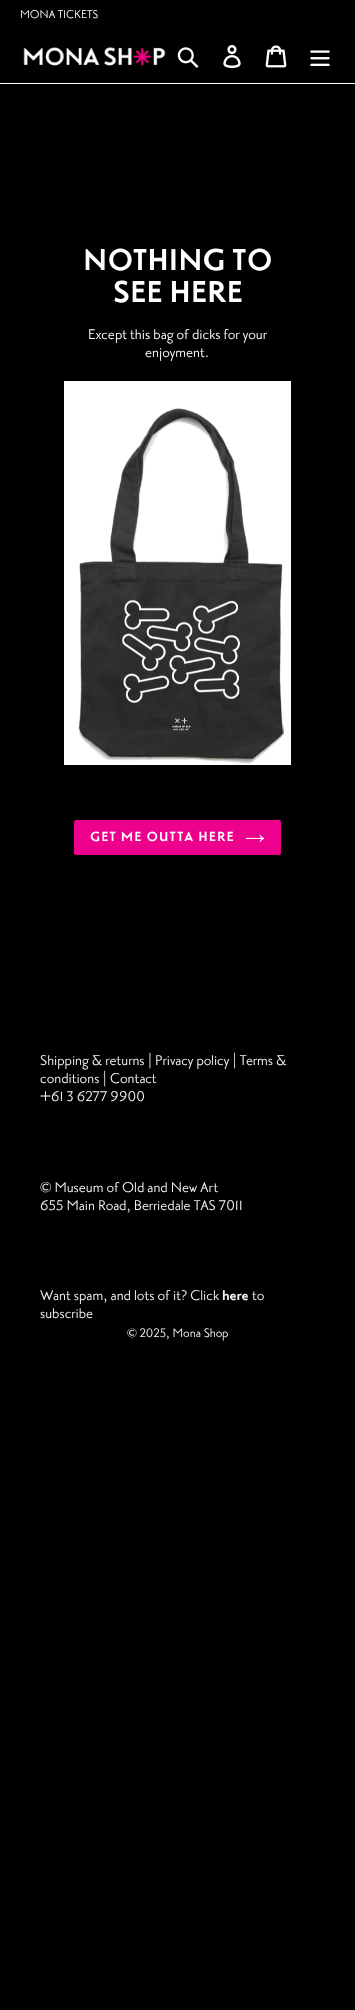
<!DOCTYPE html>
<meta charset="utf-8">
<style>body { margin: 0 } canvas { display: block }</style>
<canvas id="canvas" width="355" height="2010"></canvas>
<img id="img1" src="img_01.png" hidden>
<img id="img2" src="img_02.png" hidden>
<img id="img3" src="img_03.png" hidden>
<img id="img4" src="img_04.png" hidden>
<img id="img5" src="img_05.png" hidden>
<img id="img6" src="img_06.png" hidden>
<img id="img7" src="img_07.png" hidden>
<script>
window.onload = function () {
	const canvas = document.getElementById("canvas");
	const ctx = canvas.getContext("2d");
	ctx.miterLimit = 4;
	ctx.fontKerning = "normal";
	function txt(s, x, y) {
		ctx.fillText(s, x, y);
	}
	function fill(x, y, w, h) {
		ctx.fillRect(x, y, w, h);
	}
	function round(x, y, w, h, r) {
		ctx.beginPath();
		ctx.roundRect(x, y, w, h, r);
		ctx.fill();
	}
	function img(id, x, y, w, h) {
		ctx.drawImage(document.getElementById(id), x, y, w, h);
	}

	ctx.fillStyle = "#000000";
	fill(0, 0, 355, 2010);
	ctx.fillStyle = "#FFFFFF";
	fill(0, 83, 355, 1);
	img("img1", 23, 47, 143, 19);
	img("img2", 177, 47, 22, 21);
	img("img3", 223, 45, 18, 23);
	img("img4", 265, 45, 22, 23);
	img("img5", 310, 50, 20, 16);
	img("img6", 64, 381, 227, 384);
	ctx.fillStyle = "#EC008C";
	round(74, 820, 207, 35, 2);
	img("img7", 245, 834, 20, 8);
	ctx.font = "12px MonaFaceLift";
	ctx.fillStyle = "#FFFFFF";
	txt("MONA TICKETS", 20, 18);
	ctx.font = "bold 32px MonaFaceLift";
	txt("NOTHING TO", 83, 270);
	txt("SEE HERE", 113, 302);
	ctx.font = "15px MonaFaceLift";
	txt("Except this bag of dicks for your", 88, 339);
	txt("enjoyment.", 145, 357);
	ctx.letterSpacing = "1.1px";
	ctx.font = "bold 14px MonaFaceLift";
	txt("GET ME OUTTA HERE", 90, 841);
	ctx.letterSpacing = "0px";
	ctx.font = "15px MonaFaceLift";
	ctx.fillStyle = "#F5F5F5";
	txt("Shipping & returns | Privacy policy | Terms &", 40, 1065);
	txt("conditions | Contact", 40, 1083);
	txt("+61 3 6277 9900", 40, 1101);
	txt("© Museum of Old and New Art", 40, 1192);
	txt("655 Main Road, Berriedale TAS 7011", 40, 1210);
	txt("Want spam, and lots of it? Click", 40, 1300);
	ctx.font = "bold 15px MonaFaceLift";
	txt("here", 222, 1300);
	ctx.font = "15px MonaFaceLift";
	txt("to", 252, 1300);
	txt("subscribe", 40, 1318);
	ctx.font = "13px MonaFaceLift";
	txt("© 2025, Mona Shop", 127, 1337);
};
</script>
